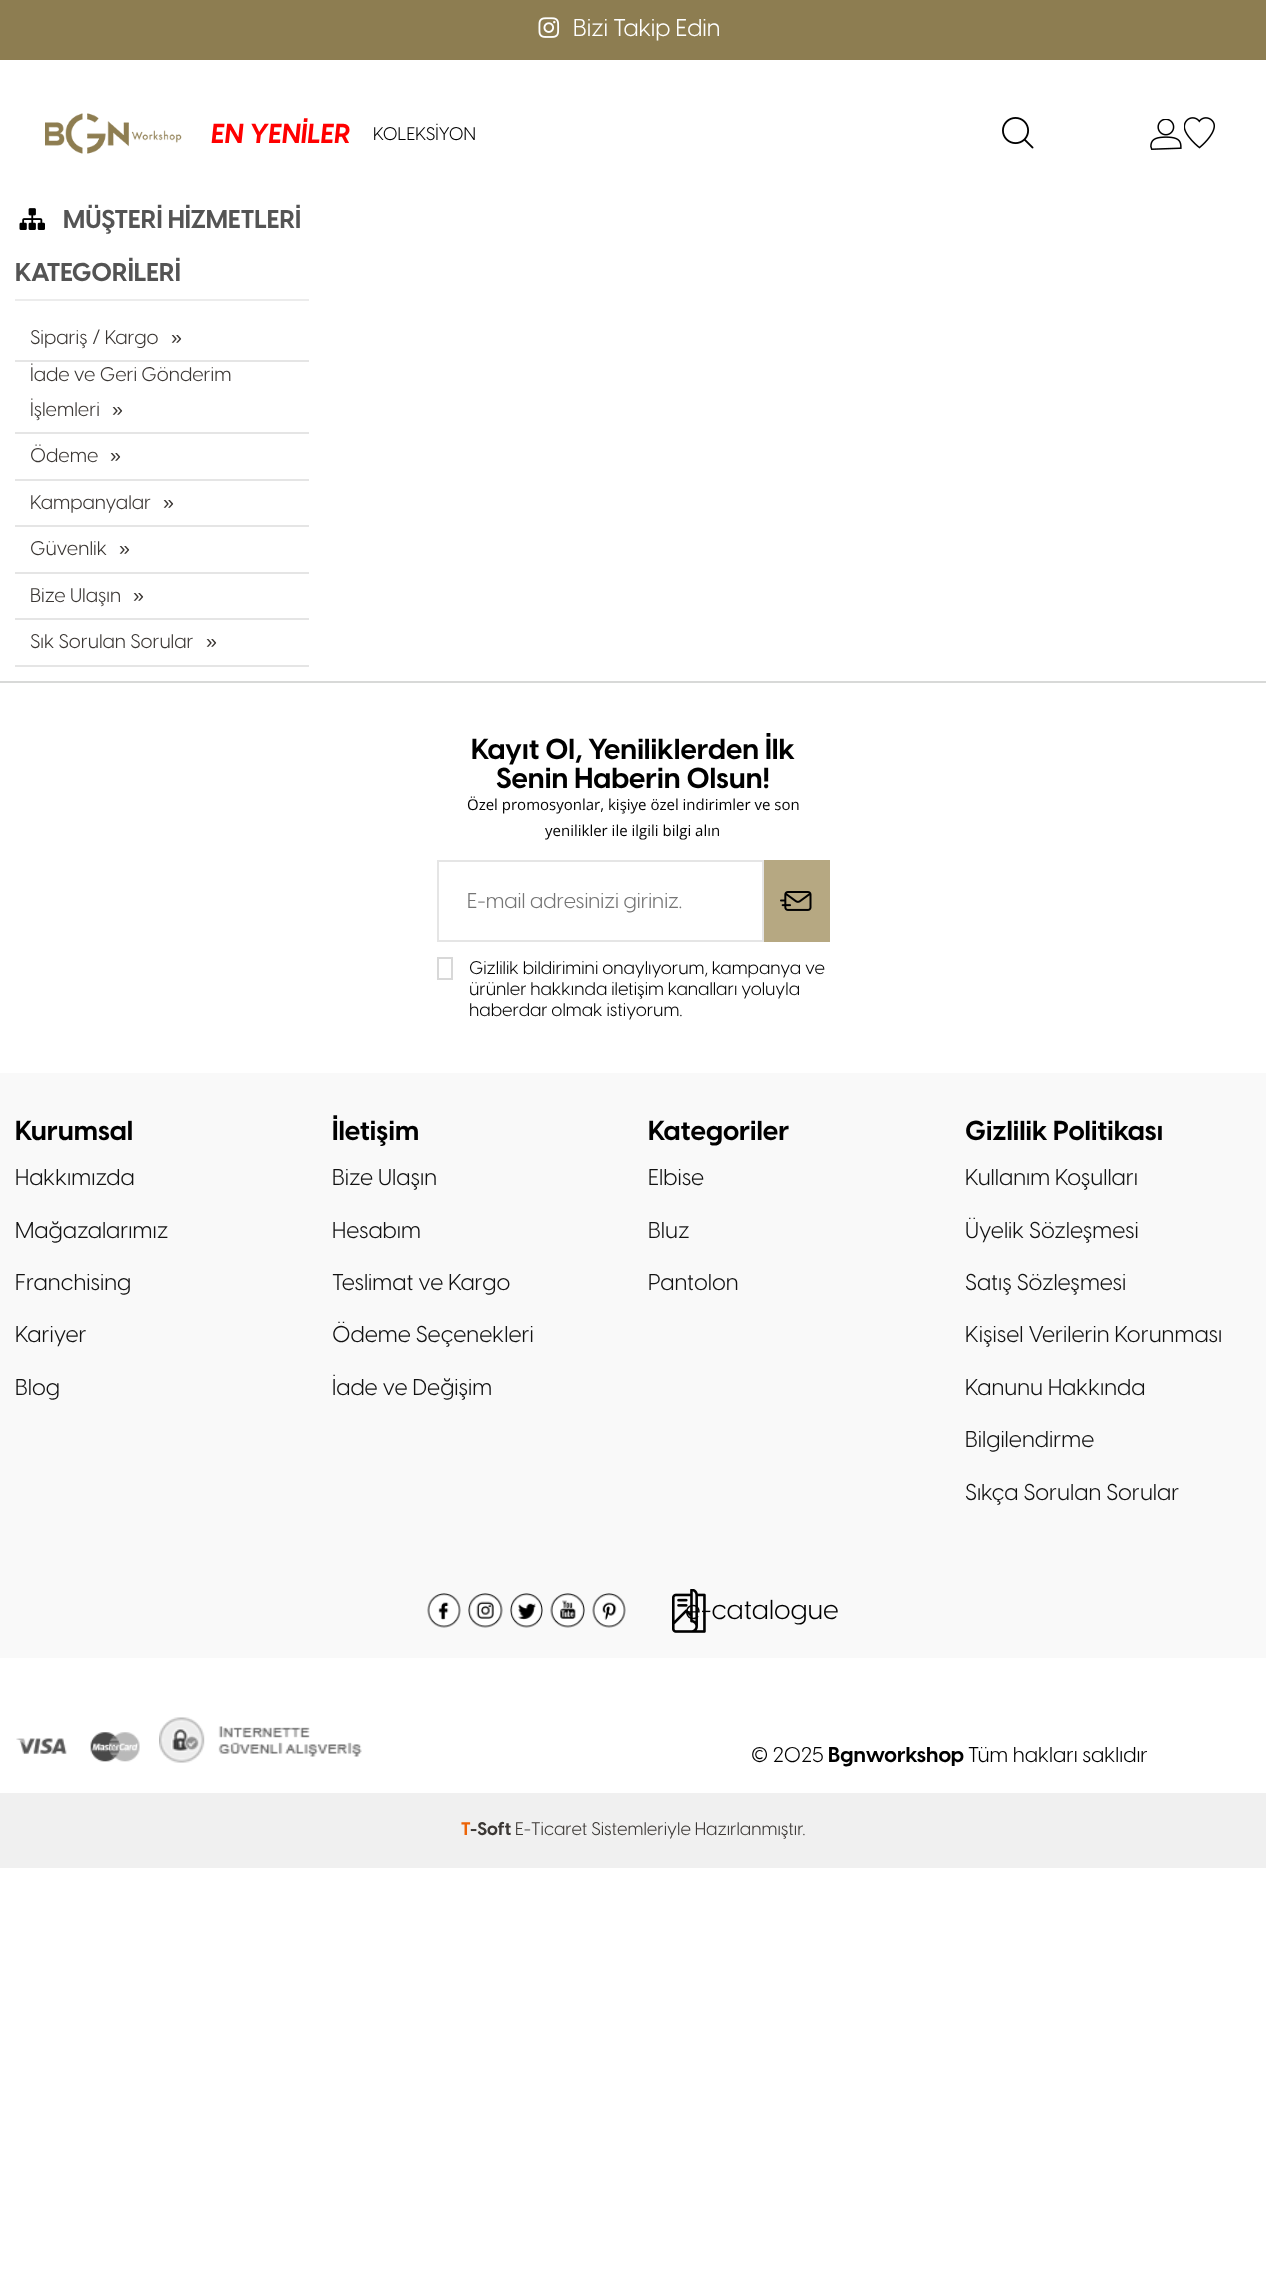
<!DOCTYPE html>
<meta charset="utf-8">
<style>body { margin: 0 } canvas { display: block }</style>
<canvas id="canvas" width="1266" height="2277"></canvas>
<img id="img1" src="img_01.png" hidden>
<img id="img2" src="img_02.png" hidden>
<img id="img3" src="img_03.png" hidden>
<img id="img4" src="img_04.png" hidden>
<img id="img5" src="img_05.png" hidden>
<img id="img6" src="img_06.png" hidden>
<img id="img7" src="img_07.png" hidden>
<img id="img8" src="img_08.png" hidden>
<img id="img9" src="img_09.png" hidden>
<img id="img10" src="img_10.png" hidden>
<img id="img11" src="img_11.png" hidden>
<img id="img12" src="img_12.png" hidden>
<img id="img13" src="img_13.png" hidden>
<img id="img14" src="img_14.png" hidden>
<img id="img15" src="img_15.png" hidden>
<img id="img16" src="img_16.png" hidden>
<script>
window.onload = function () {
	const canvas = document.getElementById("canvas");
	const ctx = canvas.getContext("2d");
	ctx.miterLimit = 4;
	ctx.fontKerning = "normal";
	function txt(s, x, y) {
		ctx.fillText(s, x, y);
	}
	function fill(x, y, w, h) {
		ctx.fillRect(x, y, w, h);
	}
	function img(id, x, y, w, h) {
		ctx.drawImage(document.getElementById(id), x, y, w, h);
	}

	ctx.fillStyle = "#FFFFFF";
	fill(0, 0, 1266, 2277);
	ctx.fillStyle = "#8D7D51";
	fill(0, 0, 1266, 60);
	img("img1", 538, 17, 22, 21);
	img("img2", 45, 113, 137, 41);
	img("img3", 1002, 117, 32, 32);
	img("img4", 1150, 119, 32, 31);
	img("img5", 1184, 117, 31, 32);
	ctx.fillStyle = "#ECECEC";
	fill(15, 299, 294, 2);
	img("img6", 19, 208, 26, 22);
	ctx.fillStyle = "#E5E5E5";
	fill(15, 360, 294, 2);
	fill(15, 432, 294, 2);
	fill(15, 479, 294, 2);
	fill(15, 525, 294, 2);
	fill(15, 572, 294, 2);
	fill(15, 618, 294, 2);
	fill(15, 665, 294, 2);
	ctx.fillStyle = "#D8D9D8";
	fill(0, 681, 1266, 2);
	ctx.strokeStyle = "#E5E5E5";
	ctx.lineWidth = 2;
	ctx.strokeRect(438, 861, 325, 80);
	ctx.fillStyle = "#B6A882";
	fill(764, 860, 66, 82);
	img("img7", 780, 891, 32, 20);
	ctx.strokeStyle = "#D8D8D8";
	ctx.strokeRect(438, 958, 14, 21);
	ctx.fillStyle = "#F9F9F9";
	fill(0, 1073, 1266, 585);
	img("img8", 427, 1593, 34, 35);
	img("img9", 468, 1593, 35, 35);
	img("img10", 510, 1593, 33, 35);
	img("img11", 550, 1593, 35, 35);
	img("img12", 592, 1593, 34, 35);
	img("img13", 672, 1589, 34, 44);
	img("img14", 16, 1738, 51, 16);
	img("img15", 90, 1732, 50, 30);
	img("img16", 159, 1717, 203, 46);
	ctx.fillStyle = "#F0F0F0";
	fill(0, 1793, 1266, 75);
	ctx.font = "24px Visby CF";
	ctx.fillStyle = "#FFFFFF";
	txt("Bizi Takip Edin", 573, 36);
	ctx.font = "italic bold 27px Visby CF";
	ctx.fillStyle = "#FF0000";
	txt("EN YENİLER", 211, 143);
	ctx.font = "18px Visby CF";
	ctx.fillStyle = "#000000";
	txt("KOLEKSİYON", 373, 140);
	ctx.font = "bold 25.5px Visby CF";
	ctx.fillStyle = "#545454";
	txt("MÜŞTERİ HİZMETLERİ", 63, 228);
	txt("KATEGORİLERİ", 15, 281);
	ctx.font = "19.5px Visby CF";
	ctx.fillStyle = "#3B3734";
	txt("Sipariş / Kargo", 30, 344);
	ctx.font = "19.5px Liberation Sans";
	txt("»", 171, 344);
	ctx.font = "19.5px Visby CF";
	txt("İade ve Geri Gönderim", 30, 381);
	txt("İşlemleri", 30, 416);
	ctx.font = "19.5px Liberation Sans";
	txt("»", 112, 416);
	ctx.font = "19.5px Visby CF";
	txt("Ödeme", 30, 462);
	ctx.font = "19.5px Liberation Sans";
	txt("»", 110, 462);
	ctx.font = "19.5px Visby CF";
	txt("Kampanyalar", 30, 509);
	ctx.font = "19.5px Liberation Sans";
	txt("»", 163, 509);
	ctx.font = "19.5px Visby CF";
	txt("Güvenlik", 30, 555);
	ctx.font = "19.5px Liberation Sans";
	txt("»", 119, 555);
	ctx.font = "19.5px Visby CF";
	txt("Bize Ulaşın", 30, 602);
	ctx.font = "19.5px Liberation Sans";
	txt("»", 133, 602);
	ctx.font = "19.5px Visby CF";
	txt("Sık Sorulan Sorular", 30, 648);
	ctx.font = "19.5px Liberation Sans";
	txt("»", 206, 648);
	ctx.font = "bold 28.5px Visby CF";
	ctx.fillStyle = "#000000";
	txt("Kayıt Ol, Yeniliklerden İlk", 471, 759);
	txt("Senin Haberin Olsun!", 496, 788);
	ctx.font = "15px Open Sans";
	txt("Özel promosyonlar, kişiye özel indirimler ve son", 467, 810);
	txt("yenilikler ile ilgili bilgi alın", 545, 836);
	ctx.font = "21px Visby CF";
	ctx.fillStyle = "#757575";
	txt("E-mail adresinizi giriniz.", 467, 908);
	ctx.font = "18px Visby CF";
	ctx.fillStyle = "#000000";
	txt("Gizlilik bildirimini onaylıyorum, kampanya ve", 469, 974);
	txt("ürünler hakkında iletişim kanalları yoluyla", 469, 995);
	txt("haberdar olmak istiyorum.", 469, 1016);
	ctx.font = "bold 27px Visby CF";
	txt("Kurumsal", 15, 1140);
	ctx.font = "22.5px Visby CF";
	ctx.fillStyle = "#121212";
	txt("Hakkımızda", 15, 1185);
	txt("Mağazalarımız", 15, 1238);
	txt("Franchising", 15, 1290);
	txt("Kariyer", 15, 1342);
	txt("Blog", 15, 1395);
	ctx.font = "bold 27px Visby CF";
	ctx.fillStyle = "#000000";
	txt("İletişim", 332, 1140);
	ctx.font = "22.5px Visby CF";
	ctx.fillStyle = "#121212";
	txt("Bize Ulaşın", 332, 1185);
	txt("Hesabım", 332, 1238);
	txt("Teslimat ve Kargo", 332, 1290);
	txt("Ödeme Seçenekleri", 332, 1342);
	txt("İade ve Değişim", 332, 1395);
	ctx.font = "bold 27px Visby CF";
	ctx.fillStyle = "#000000";
	txt("Kategoriler", 648, 1140);
	ctx.font = "22.5px Visby CF";
	ctx.fillStyle = "#121212";
	txt("Elbise", 648, 1185);
	txt("Bluz", 648, 1238);
	txt("Pantolon", 648, 1290);
	ctx.font = "bold 27px Visby CF";
	ctx.fillStyle = "#000000";
	txt("Gizlilik Politikası", 965, 1140);
	ctx.font = "22.5px Visby CF";
	ctx.fillStyle = "#121212";
	txt("Kullanım Koşulları", 965, 1185);
	txt("Üyelik Sözleşmesi", 965, 1238);
	txt("Satış Sözleşmesi", 965, 1290);
	txt("Kişisel Verilerin Korunması", 965, 1342);
	txt("Kanunu Hakkında", 965, 1395);
	txt("Bilgilendirme", 965, 1447);
	txt("Sıkça Sorulan Sorular", 965, 1500);
	ctx.font = "27px Visby CF";
	ctx.fillStyle = "#000000";
	txt("e-catalogue", 685, 1619);
	ctx.font = "21px Visby CF";
	txt("© 2025", 751, 1762);
	ctx.font = "bold 21px Visby CF";
	txt("Bgnworkshop", 828, 1762);
	ctx.font = "21px Visby CF";
	txt("Tüm hakları saklıdır", 968, 1762);
	ctx.font = "bold 18px Visby CF";
	ctx.fillStyle = "#EC6408";
	txt("T", 461, 1835);
	ctx.fillStyle = "#3B3734";
	txt("-Soft", 470, 1835);
	ctx.font = "18px Visby CF";
	txt("E-Ticaret Sistemleriyle Hazırlanmıştır.", 515, 1835);
};
</script>
